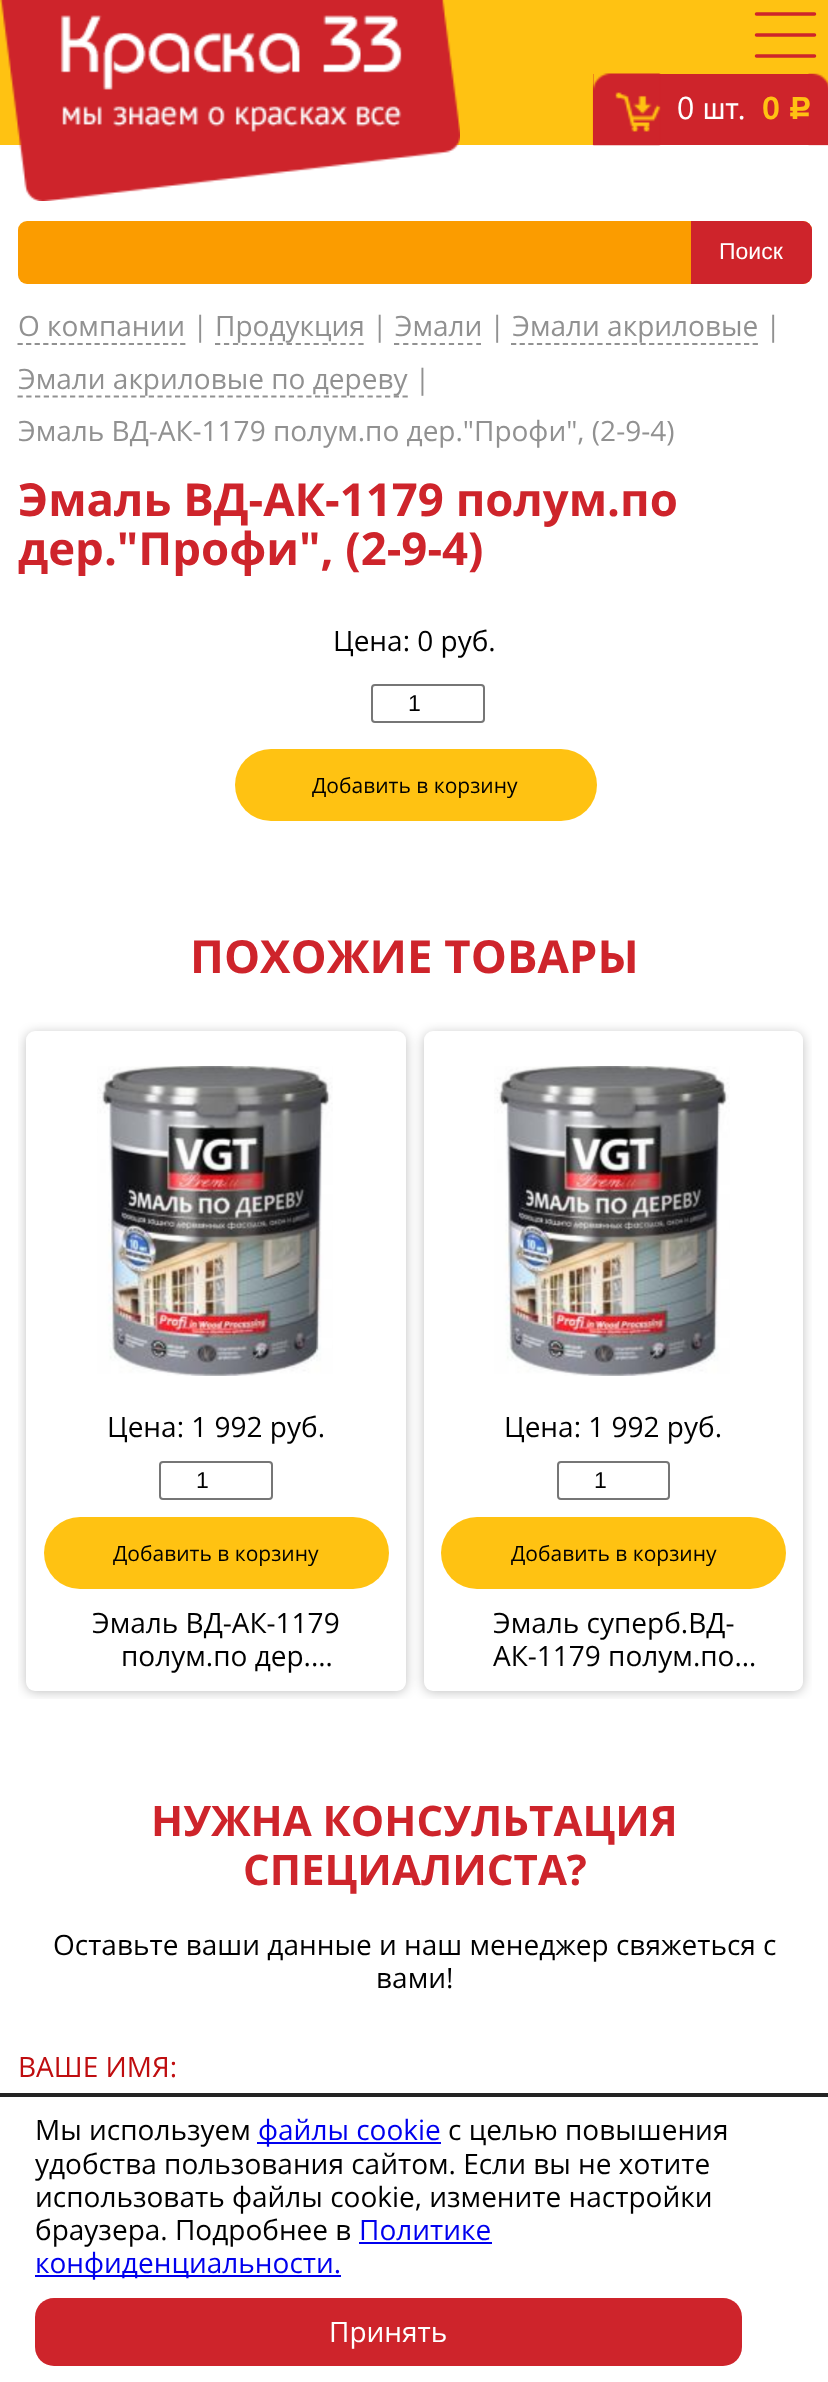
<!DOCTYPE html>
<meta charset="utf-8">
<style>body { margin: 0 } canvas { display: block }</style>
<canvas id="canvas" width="828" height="2382"></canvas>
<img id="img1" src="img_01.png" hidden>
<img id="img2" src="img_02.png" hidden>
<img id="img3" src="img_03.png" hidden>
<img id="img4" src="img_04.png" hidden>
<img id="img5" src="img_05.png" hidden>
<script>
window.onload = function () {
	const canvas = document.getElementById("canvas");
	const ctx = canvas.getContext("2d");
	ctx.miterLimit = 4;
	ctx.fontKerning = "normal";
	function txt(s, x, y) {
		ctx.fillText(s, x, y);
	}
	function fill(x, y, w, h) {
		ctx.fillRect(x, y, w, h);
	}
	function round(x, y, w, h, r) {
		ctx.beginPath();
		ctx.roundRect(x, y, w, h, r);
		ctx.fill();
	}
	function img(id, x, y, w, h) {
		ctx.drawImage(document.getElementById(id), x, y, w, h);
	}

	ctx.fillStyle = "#FFFFFF";
	fill(0, 0, 828, 2382);
	ctx.fillStyle = "#FFC212";
	fill(0, 0, 828, 145);
	img("img1", 0, 0, 460, 201);
	ctx.beginPath();
	ctx.moveTo(756.5, 14);
	ctx.lineTo(814.5, 14);
	ctx.moveTo(756.5, 35);
	ctx.lineTo(814.5, 35);
	ctx.moveTo(756.5, 56);
	ctx.lineTo(814.5, 56);
	ctx.strokeStyle = "#CE242B";
	ctx.lineWidth = 3.5;
	ctx.lineCap = "round";
	ctx.lineJoin = "round";
	ctx.stroke();
	ctx.fillStyle = "#CE242B";
	fill(593, 74, 216, 71);
	img("img2", 592, 73, 69, 73);
	img("img3", 808, 73, 20, 73);
	ctx.fillStyle = "#FB9C00";
	round(18, 221, 794, 63, 9);
	ctx.fillStyle = "#CE242B";
	ctx.beginPath();
	ctx.roundRect(691, 221, 121, 63, [0, 9, 9, 0]);
	ctx.fill();
	ctx.beginPath();
	ctx.moveTo(17.5, 344);
	ctx.lineTo(185.5, 344);
	ctx.strokeStyle = "#919191";
	ctx.lineWidth = 1.8;
	ctx.lineCap = "butt";
	ctx.lineJoin = "miter";
	ctx.setLineDash([5.25, 3.31]);
	ctx.stroke();
	ctx.beginPath();
	ctx.moveTo(215, 344);
	ctx.lineTo(364, 344);
	ctx.setLineDash([5.25, 3.71]);
	ctx.stroke();
	ctx.beginPath();
	ctx.moveTo(394, 344);
	ctx.lineTo(481, 344);
	ctx.setLineDash([5.25, 3.89]);
	ctx.stroke();
	ctx.beginPath();
	ctx.moveTo(511, 344);
	ctx.lineTo(758, 344);
	ctx.setLineDash([5.25, 3.38]);
	ctx.stroke();
	ctx.beginPath();
	ctx.moveTo(17.5, 396.5);
	ctx.lineTo(408, 396.5);
	ctx.setLineDash([5.25, 3.5]);
	ctx.stroke();
	ctx.beginPath();
	ctx.roundRect(372, 685, 112, 37, 3);
	ctx.strokeStyle = "#767676";
	ctx.lineWidth = 2;
	ctx.setLineDash([]);
	ctx.stroke();
	ctx.fillStyle = "#FFC212";
	round(235, 749, 362, 72, 36);
	ctx.save();
	ctx.beginPath();
	ctx.rect(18, 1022, 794, 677);
	ctx.clip();
	ctx.fillStyle = "rgba(0, 0, 0, 0.25)";
	ctx.filter = "blur(6px)";
	ctx.beginPath();
	ctx.roundRect(26, 1033, 380, 659, 9);
	ctx.fill();
	ctx.filter = "none";
	ctx.restore();
	ctx.fillStyle = "#FFFFFF";
	round(26, 1031, 380, 660, 9);
	img("img4", 97, 1066, 236, 310);
	ctx.beginPath();
	ctx.roundRect(160, 1462, 112, 37, 3);
	ctx.stroke();
	ctx.fillStyle = "#FFC212";
	round(44, 1517, 345, 72, 36);
	ctx.save();
	ctx.beginPath();
	ctx.rect(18, 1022, 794, 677);
	ctx.clip();
	ctx.fillStyle = "rgba(0, 0, 0, 0.25)";
	ctx.filter = "blur(6px)";
	ctx.beginPath();
	ctx.roundRect(424, 1033, 379, 659, 9);
	ctx.fill();
	ctx.filter = "none";
	ctx.restore();
	ctx.fillStyle = "#FFFFFF";
	round(424, 1031, 379, 660, 9);
	img("img5", 494, 1066, 236, 310);
	ctx.beginPath();
	ctx.roundRect(558, 1462, 111, 37, 3);
	ctx.stroke();
	ctx.fillStyle = "#FFC212";
	round(441, 1517, 345, 72, 36);
	ctx.fillStyle = "#232323";
	fill(0, 2093, 828, 4);
	ctx.fillStyle = "#0000EE";
	fill(257, 2142, 184, 2);
	fill(359, 2242, 133, 2);
	fill(35, 2275, 306, 2);
	ctx.fillStyle = "#CE242B";
	round(35, 2298, 707, 68, 19);
	ctx.font = "31.5px PT Sans";
	ctx.fillStyle = "#FFFFFF";
	txt("0 шт.", 677, 119);
	ctx.font = "bold 31.5px PT Sans";
	ctx.fillStyle = "#FFC212";
	txt("0", 762, 119);
	ctx.font = "31.5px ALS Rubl";
	txt("c", 788, 119);
	ctx.font = "23px Liberation Sans";
	ctx.fillStyle = "#FFFFFF";
	txt("Поиск", 719, 259);
	ctx.font = "28px Open Sans";
	ctx.fillStyle = "#919191";
	txt("О компании | Продукция | Эмали | Эмали акриловые |", 18, 336);
	txt("Эмали акриловые по дереву |", 18, 389);
	txt("Эмаль ВД-АК-1179 полум.по дер.\"Профи\", (2-9-4)", 18, 441);
	ctx.font = "bold 45.5px Open Sans";
	ctx.fillStyle = "#CE242B";
	txt("Эмаль ВД-АК-1179 полум.по", 18, 516);
	txt("дер.\"Профи\", (2-9-4)", 18, 565);
	ctx.font = "28px Open Sans";
	ctx.fillStyle = "#000000";
	txt("Цена: 0 руб.", 333, 651);
	ctx.font = "23px Liberation Sans";
	txt("1", 408, 711);
	ctx.font = "21px Open Sans";
	txt("Добавить в корзину", 312, 793);
	ctx.font = "bold 45.5px Open Sans";
	ctx.fillStyle = "#CE242B";
	txt("ПОХОЖИЕ ТОВАРЫ", 190, 973);
	ctx.font = "28px Open Sans";
	ctx.fillStyle = "#000000";
	txt("Цена: 1 992 руб.", 107, 1437);
	ctx.font = "23px Liberation Sans";
	txt("1", 196, 1488);
	ctx.font = "21px Open Sans";
	txt("Добавить в корзину", 113, 1561);
	ctx.font = "28px Open Sans";
	txt("Эмаль ВД-АК-1179", 92, 1633);
	txt("полум.по дер.…", 121, 1666);
	txt("Цена: 1 992 руб.", 504, 1437);
	ctx.font = "23px Liberation Sans";
	txt("1", 594, 1488);
	ctx.font = "21px Open Sans";
	txt("Добавить в корзину", 511, 1561);
	ctx.font = "28px Open Sans";
	txt("Эмаль суперб.ВД-", 493, 1633);
	txt("АК-1179 полум.по…", 493, 1666);
	ctx.font = "bold 42px Open Sans";
	ctx.fillStyle = "#CE242B";
	txt("НУЖНА КОНСУЛЬТАЦИЯ", 151, 1836);
	txt("СПЕЦИАЛИСТА?", 243, 1885);
	ctx.font = "28px Open Sans";
	ctx.fillStyle = "#000000";
	txt("Оставьте ваши данные и наш менеджер свяжеться с", 53, 1955);
	txt("вами!", 376, 1988);
	ctx.fillStyle = "#BF0D0F";
	txt("ВАШЕ ИМЯ:", 18, 2077);
	ctx.fillStyle = "#000000";
	txt("Мы используем", 35, 2140);
	ctx.fillStyle = "#0000EE";
	txt("файлы cookie", 258, 2140);
	ctx.fillStyle = "#000000";
	txt("с целью повышения", 448, 2140);
	txt("удобства пользования сайтом. Если вы не хотите", 35, 2174);
	txt("использовать файлы cookie, измените настройки", 35, 2207);
	txt("браузера. Подробнее в", 35, 2240);
	ctx.fillStyle = "#0000EE";
	txt("Политике", 359, 2240);
	txt("конфиденциальности.", 35, 2273);
	ctx.fillStyle = "#FFFFFF";
	txt("Принять", 329, 2342);
};
</script>
